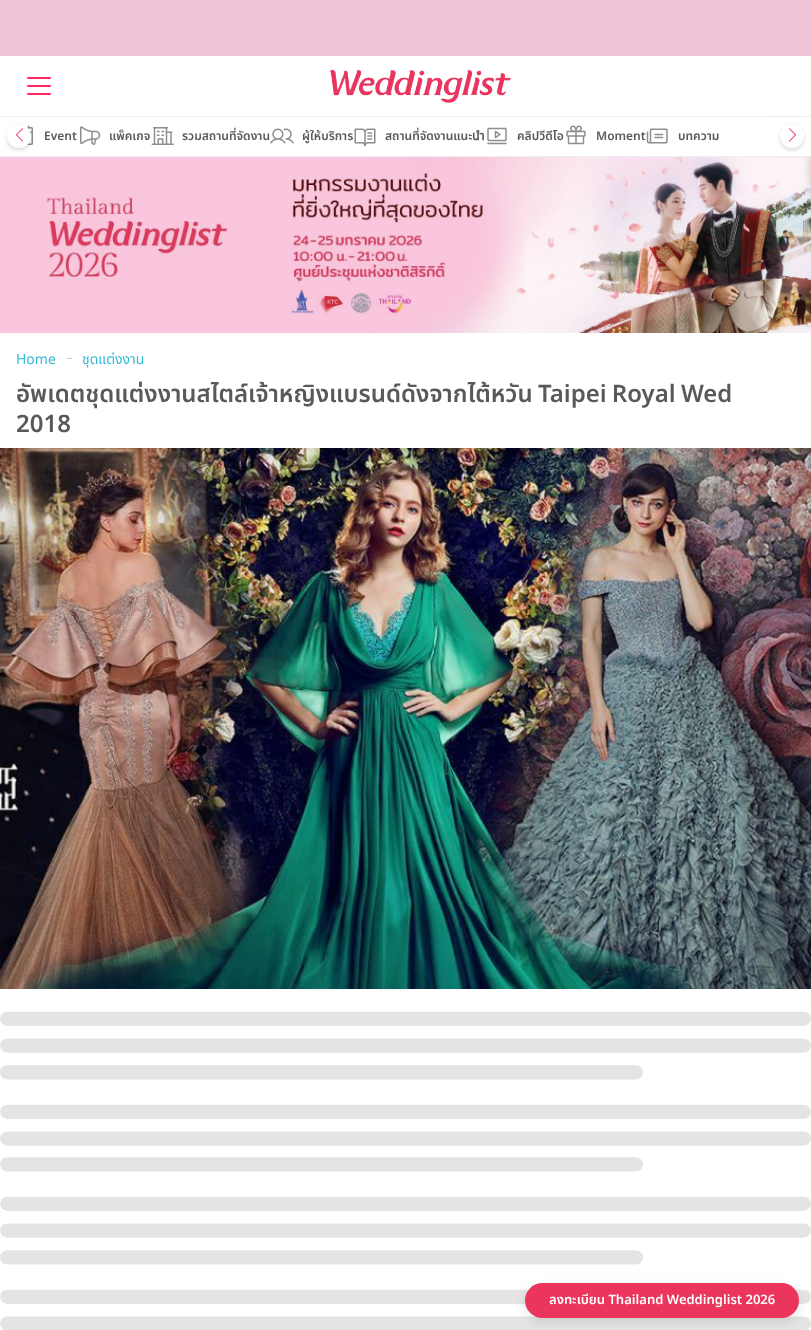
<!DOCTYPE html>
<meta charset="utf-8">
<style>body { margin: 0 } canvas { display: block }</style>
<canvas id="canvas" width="811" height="1330"></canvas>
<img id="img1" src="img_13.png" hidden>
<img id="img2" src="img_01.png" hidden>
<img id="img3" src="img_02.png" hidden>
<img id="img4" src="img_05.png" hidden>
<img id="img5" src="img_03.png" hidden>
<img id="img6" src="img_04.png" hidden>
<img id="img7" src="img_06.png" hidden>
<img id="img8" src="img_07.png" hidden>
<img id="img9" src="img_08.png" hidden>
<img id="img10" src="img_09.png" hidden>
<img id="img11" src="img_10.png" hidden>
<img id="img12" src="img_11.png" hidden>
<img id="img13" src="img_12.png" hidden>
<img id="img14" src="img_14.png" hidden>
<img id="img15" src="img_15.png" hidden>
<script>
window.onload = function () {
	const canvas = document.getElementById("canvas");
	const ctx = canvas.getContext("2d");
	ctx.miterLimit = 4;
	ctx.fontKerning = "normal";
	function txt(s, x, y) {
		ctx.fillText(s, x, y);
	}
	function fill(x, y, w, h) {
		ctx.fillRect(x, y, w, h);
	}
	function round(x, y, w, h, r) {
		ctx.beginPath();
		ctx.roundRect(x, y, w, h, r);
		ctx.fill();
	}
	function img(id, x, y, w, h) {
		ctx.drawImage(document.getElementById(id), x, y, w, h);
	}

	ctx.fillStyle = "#FFFFFF";
	fill(0, 0, 811, 1330);
	ctx.fillStyle = "#F0C3D8";
	fill(0, 0, 811, 56);
	img("img1", 0, 157, 811, 176);
	ctx.fillStyle = "rgba(0, 0, 0, 0.2)";
	ctx.filter = "blur(5px)";
	ctx.beginPath();
	ctx.roundRect(811, 118, 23, 70, 8);
	ctx.fill();
	ctx.filter = "none";
	ctx.fillStyle = "rgba(0, 0, 0, 0.1)";
	ctx.filter = "blur(1.5px)";
	ctx.beginPath();
	ctx.roundRect(771, 116, 40, 40, 8);
	ctx.fill();
	ctx.filter = "none";
	ctx.fillStyle = "#FFFFFF";
	ctx.beginPath();
	ctx.roundRect(771, 116, 40, 40, [8, 0, 0, 8]);
	ctx.fill();
	ctx.fillStyle = "#EEEEEE";
	fill(0, 116, 811, 1);
	ctx.fillStyle = "rgba(255, 255, 255, 0.9)";
	fill(774, 114, 37, 2);
	img("img2", 27, 77, 24, 18);
	img("img3", 329, 69, 182, 34);
	ctx.fillStyle = "#EEEEEE";
	fill(0, 156, 811, 1);
	ctx.fillStyle = "rgba(255, 255, 255, 0.9)";
	fill(769, 117, 8, 39);
	img("img4", 26, 125, 7, 20);
	ctx.fillStyle = "rgba(0, 0, 0, 0.15)";
	ctx.filter = "blur(2px)";
	ctx.beginPath();
	ctx.roundRect(7, 126, 24, 24, 12);
	ctx.fill();
	ctx.filter = "none";
	ctx.fillStyle = "#FFFFFF";
	ctx.beginPath();
	ctx.arc(19, 136, 12, 0, Math.PI * 2);
	ctx.fill();
	img("img5", 16, 128, 7, 14);
	ctx.fillStyle = "rgba(0, 0, 0, 0.15)";
	ctx.filter = "blur(2px)";
	ctx.beginPath();
	ctx.roundRect(780, 126, 24, 24, 12);
	ctx.fill();
	ctx.filter = "none";
	ctx.fillStyle = "#FFFFFF";
	ctx.beginPath();
	ctx.arc(792, 136, 12, 0, Math.PI * 2);
	ctx.fill();
	img("img6", 789, 128, 7, 14);
	img("img7", 80, 126, 21, 19);
	img("img8", 151, 127, 23, 18);
	img("img9", 270, 128, 24, 16);
	img("img10", 354, 128, 22, 19);
	img("img11", 487, 127, 20, 18);
	img("img12", 566, 125, 20, 20);
	img("img13", 646, 128, 22, 16);
	img("img14", 0, 448, 811, 541);
	img("img15", 0, 1011, 811, 319);
	ctx.fillStyle = "rgba(0, 0, 0, 0.1)";
	ctx.filter = "blur(6px)";
	ctx.beginPath();
	ctx.roundRect(525, 1287, 274, 35, 17.5);
	ctx.fill();
	ctx.filter = "none";
	ctx.fillStyle = "#EB355D";
	round(525, 1283, 274, 35, 17.5);
	ctx.font = "600 12px Noto Sans Thai";
	ctx.fillStyle = "#595959";
	txt("Event", 44, 140);
	txt("แพ็คเกจ", 109, 140);
	txt("รวมสถานที่จัดงาน", 182, 140);
	txt("ผู้ให้บริการ", 302, 140);
	txt("สถานที่จัดงานแนะนำ", 385, 140);
	txt("คลิปวีดีโอ", 517, 140);
	txt("Moment", 596, 140);
	txt("บทความ", 678, 140);
	ctx.font = "14px Noto Sans Thai";
	ctx.fillStyle = "#37BAD6";
	txt("Home", 16, 364);
	ctx.font = "13px Noto Sans Thai";
	ctx.fillStyle = "#CCCCCC";
	txt("–", 66, 362);
	ctx.save();
	ctx.beginPath();
	ctx.rect(82, 349, 63, 21);
	ctx.clip();
	ctx.font = "14px Noto Sans Thai";
	ctx.fillStyle = "#37BAD6";
	txt("ชุดแต่งงาน", 82, 364);
	ctx.restore();
	ctx.wordSpacing = "-1px";
	ctx.font = "600 24px Noto Sans Thai";
	ctx.fillStyle = "#595959";
	txt("อัพเดตชุดแต่งงานสไตล์เจ้าหญิงแบรนด์ดังจากไต้หวัน Taipei Royal Wed", 16, 402);
	ctx.wordSpacing = "0px";
	txt("2018", 16, 432);
	ctx.font = "600 13px Noto Sans Thai";
	ctx.fillStyle = "#FFFFFF";
	txt("ลงทะเบียน Thailand Weddinglist 2026", 549, 1304);
};
</script>
